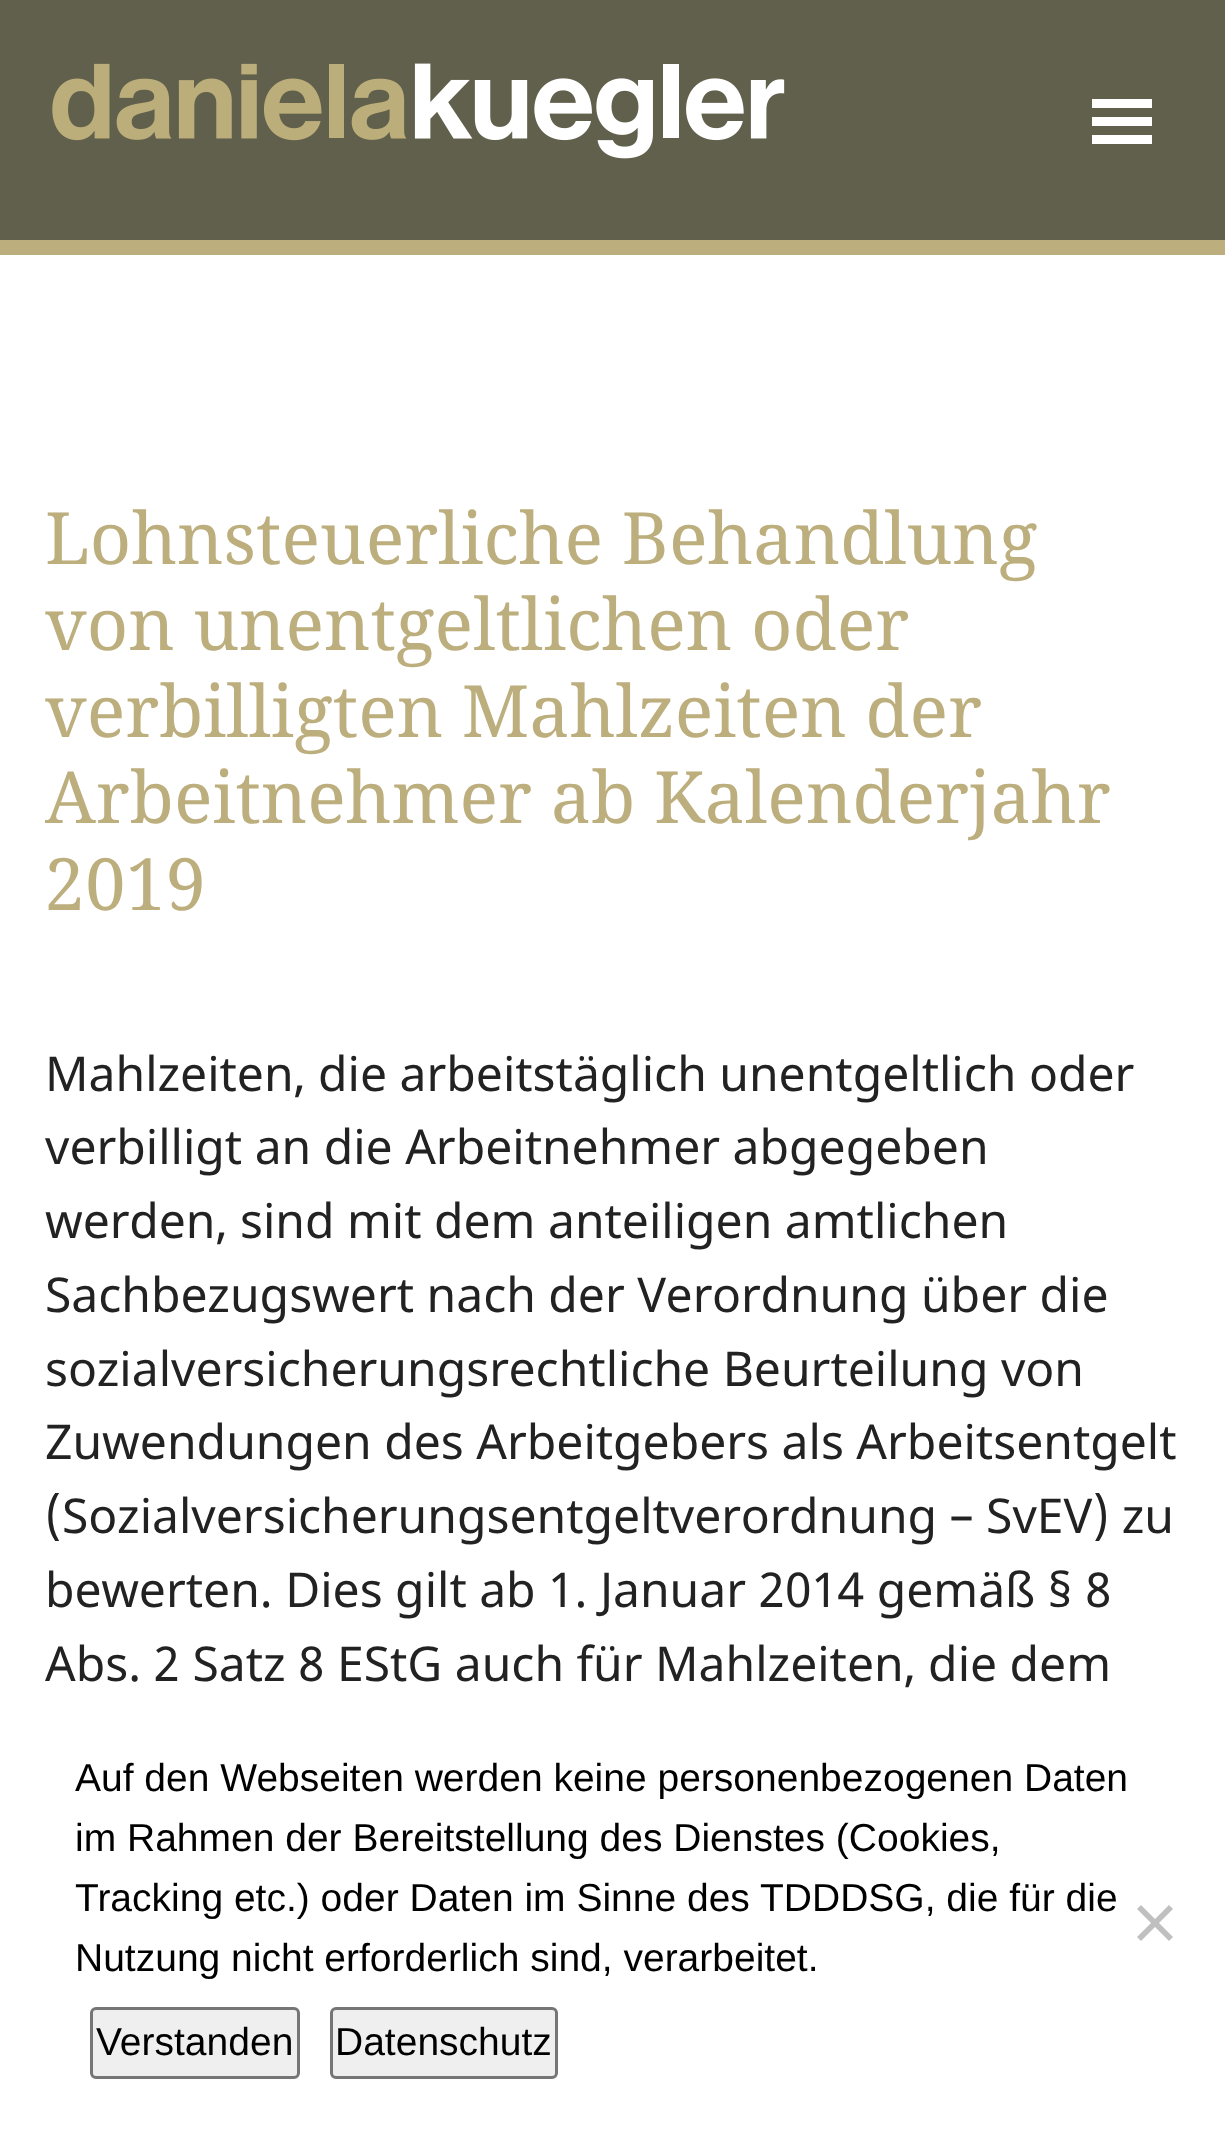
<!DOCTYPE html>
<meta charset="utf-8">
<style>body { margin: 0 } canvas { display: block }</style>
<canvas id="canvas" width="1225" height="2139"></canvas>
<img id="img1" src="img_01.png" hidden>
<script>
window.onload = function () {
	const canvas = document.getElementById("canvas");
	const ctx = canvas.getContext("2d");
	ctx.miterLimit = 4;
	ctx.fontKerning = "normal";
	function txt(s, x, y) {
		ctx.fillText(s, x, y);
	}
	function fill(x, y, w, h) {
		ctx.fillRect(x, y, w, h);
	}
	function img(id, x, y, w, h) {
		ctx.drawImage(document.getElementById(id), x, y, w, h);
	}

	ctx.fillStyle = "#FFFFFF";
	fill(0, 0, 1225, 2139);
	ctx.fillStyle = "#61604C";
	fill(0, 0, 1225, 240);
	img("img1", 52, 63, 733, 96);
	ctx.fillStyle = "#FFFFFF";
	fill(1092, 117, 60, 9);
	fill(1092, 99, 60, 9);
	fill(1092, 135, 60, 9);
	ctx.fillStyle = "#BCAE7D";
	fill(0, 240, 1225, 15);
	ctx.fillStyle = "#C0C0C0";
	ctx.beginPath();
	ctx.moveTo(1169, 1905);
	ctx.lineTo(1173, 1909);
	ctx.lineTo(1141, 1941);
	ctx.lineTo(1137, 1937);
	ctx.closePath();
	ctx.fill();
	ctx.beginPath();
	ctx.moveTo(1137, 1909);
	ctx.lineTo(1141, 1905);
	ctx.lineTo(1173, 1937);
	ctx.lineTo(1169, 1941);
	ctx.closePath();
	ctx.fill();
	ctx.fillStyle = "#EFEFEF";
	ctx.beginPath();
	ctx.roundRect(91.5, 2008.5, 207, 69, 4.5);
	ctx.fill();
	ctx.strokeStyle = "#767676";
	ctx.lineWidth = 3;
	ctx.stroke();
	ctx.beginPath();
	ctx.roundRect(331.5, 2008.5, 225, 69, 4.5);
	ctx.fill();
	ctx.stroke();
	ctx.font = "72px Noto Serif";
	ctx.fillStyle = "#BCAE7D";
	txt("Lohnsteuerliche Behandlung", 45, 564);
	txt("von unentgeltlichen oder", 45, 650);
	txt("verbilligten Mahlzeiten der", 45, 737);
	txt("Arbeitnehmer ab Kalenderjahr", 45, 823);
	txt("2019", 45, 910);
	ctx.font = "48px Noto Sans";
	ctx.fillStyle = "#222222";
	txt("Mahlzeiten, die arbeitstäglich unentgeltlich oder", 45, 1091);
	txt("verbilligt an die Arbeitnehmer abgegeben", 45, 1164);
	txt("werden, sind mit dem anteiligen amtlichen", 45, 1238);
	txt("Sachbezugswert nach der Verordnung über die", 45, 1312);
	txt("sozialversicherungsrechtliche Beurteilung von", 45, 1386);
	txt("Zuwendungen des Arbeitgebers als Arbeitsentgelt", 45, 1459);
	txt("(Sozialversicherungsentgeltverordnung – SvEV) zu", 45, 1533);
	txt("bewerten. Dies gilt ab 1. Januar 2014 gemäß § 8", 45, 1607);
	txt("Abs. 2 Satz 8 EStG auch für Mahlzeiten, die dem", 45, 1681);
	ctx.font = "39px Liberation Sans";
	ctx.fillStyle = "#000000";
	txt("Auf den Webseiten werden keine personenbezogenen Daten", 75, 1791);
	txt("im Rahmen der Bereitstellung des Dienstes (Cookies,", 75, 1851);
	txt("Tracking etc.) oder Daten im Sinne des TDDDSG, die für die", 75, 1911);
	txt("Nutzung nicht erforderlich sind, verarbeitet.", 75, 1971);
	txt("Verstanden", 96, 2055);
	txt("Datenschutz", 335, 2055);
};
</script>
